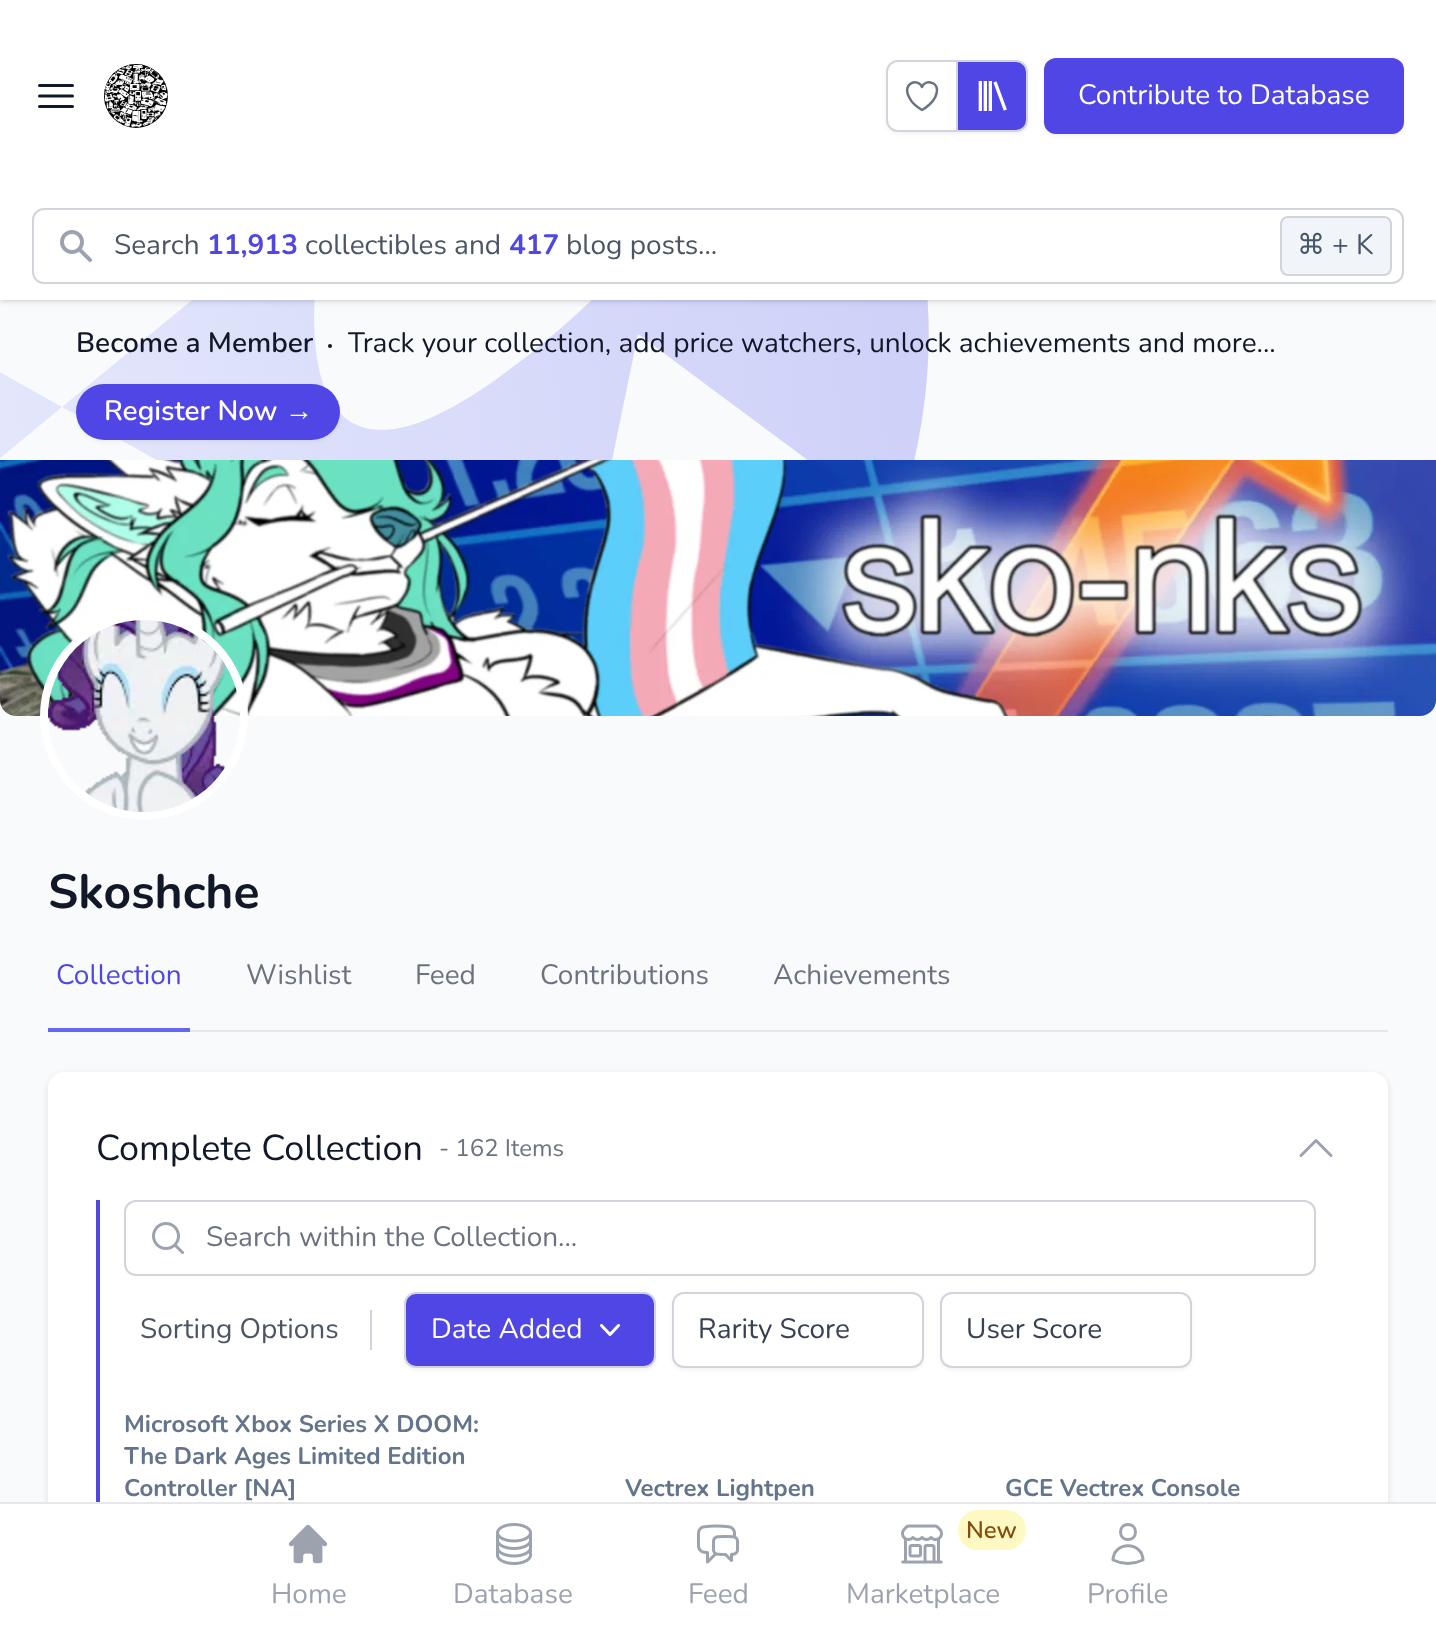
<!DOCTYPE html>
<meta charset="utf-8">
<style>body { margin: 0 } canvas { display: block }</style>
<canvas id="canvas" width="1436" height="1630"></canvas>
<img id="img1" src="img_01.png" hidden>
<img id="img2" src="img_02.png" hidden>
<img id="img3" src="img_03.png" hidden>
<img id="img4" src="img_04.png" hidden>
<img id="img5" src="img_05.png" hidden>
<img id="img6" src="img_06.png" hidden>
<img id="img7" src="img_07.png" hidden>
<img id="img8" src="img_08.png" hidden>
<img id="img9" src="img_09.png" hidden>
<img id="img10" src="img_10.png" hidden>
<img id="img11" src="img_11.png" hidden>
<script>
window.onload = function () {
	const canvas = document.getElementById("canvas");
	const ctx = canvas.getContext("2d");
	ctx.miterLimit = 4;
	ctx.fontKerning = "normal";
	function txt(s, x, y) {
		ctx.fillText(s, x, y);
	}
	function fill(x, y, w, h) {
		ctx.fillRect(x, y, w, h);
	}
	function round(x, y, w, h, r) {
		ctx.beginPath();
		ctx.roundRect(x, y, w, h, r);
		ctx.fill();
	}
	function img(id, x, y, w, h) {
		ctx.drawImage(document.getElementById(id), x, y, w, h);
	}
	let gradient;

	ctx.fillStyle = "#F9FAFB";
	fill(0, 0, 1436, 1630);
	ctx.save();
	ctx.beginPath();
	ctx.rect(0, 300, 930, 160);
	ctx.clip();
	gradient = ctx.createLinearGradient(1006, 123, -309, 262);
	gradient.addColorStop(0, "#CCCEF8");
	gradient.addColorStop(1, "#EAEEFC");
	ctx.fillStyle = gradient;
	ctx.beginPath();
	ctx.moveTo(62, 407);
	ctx.lineTo(-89, 532);
	ctx.lineTo(-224, 247);
	ctx.lineTo(62, 407);
	ctx.lineTo(333, 184);
	ctx.bezierCurveTo(300, 312, 287, 530, 498, 378);
	ctx.bezierCurveTo(762, 188, 766, -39, 875, 131);
	ctx.bezierCurveTo(962, 266, 924, 450, 895, 525);
	ctx.lineTo(638, 334);
	ctx.lineTo(565, 689);
	ctx.closePath();
	ctx.fill();
	ctx.restore();
	ctx.fillStyle = "rgba(0, 0, 0, 0.1)";
	ctx.filter = "blur(2px)";
	ctx.beginPath();
	ctx.rect(2, 4, 1432, 296);
	ctx.fill();
	ctx.filter = "none";
	ctx.filter = "blur(3px)";
	ctx.beginPath();
	ctx.rect(0, 2, 1436, 300);
	ctx.fill();
	ctx.filter = "none";
	ctx.fillStyle = "#FFFFFF";
	fill(0, 0, 1436, 300);
	ctx.beginPath();
	ctx.moveTo(39.5, 85.5);
	ctx.lineTo(72.5, 85.5);
	ctx.moveTo(39.5, 96);
	ctx.lineTo(72.5, 96);
	ctx.moveTo(39.5, 106.5);
	ctx.lineTo(72.5, 106.5);
	ctx.strokeStyle = "#111827";
	ctx.lineWidth = 3;
	ctx.lineCap = "round";
	ctx.lineJoin = "round";
	ctx.stroke();
	img("img1", 104, 64, 64, 64);
	ctx.fillStyle = "rgba(0, 0, 0, 0.05)";
	ctx.filter = "blur(2px)";
	ctx.beginPath();
	ctx.roundRect(886, 62, 142, 72, 12);
	ctx.fill();
	ctx.filter = "none";
	ctx.fillStyle = "#FFFFFF";
	ctx.beginPath();
	ctx.roundRect(887, 61, 70, 70, [11, 0, 0, 11]);
	ctx.fill();
	ctx.strokeStyle = "#D1D5DB";
	ctx.lineWidth = 2;
	ctx.lineJoin = "miter";
	ctx.stroke();
	ctx.beginPath();
	ctx.moveTo(937, 90);
	ctx.bezierCurveTo(937, 81.5, 925, 79.5, 922, 87);
	ctx.bezierCurveTo(918, 77.5, 901, 83, 909.5, 98);
	ctx.bezierCurveTo(912, 103, 917, 107, 922, 110);
	ctx.bezierCurveTo(922, 110, 937, 102, 937, 90);
	ctx.closePath();
	ctx.strokeStyle = "#6B7280";
	ctx.lineWidth = 2.5;
	ctx.lineJoin = "round";
	ctx.stroke();
	ctx.fillStyle = "#4F46E5";
	ctx.beginPath();
	ctx.roundRect(957, 61, 70, 70, [0, 11, 11, 0]);
	ctx.fill();
	ctx.strokeStyle = "#D1D5DB";
	ctx.lineWidth = 2;
	ctx.lineJoin = "miter";
	ctx.stroke();
	img("img2", 978, 81, 29, 30);
	ctx.fillStyle = "rgba(0, 0, 0, 0.05)";
	ctx.filter = "blur(2px)";
	ctx.beginPath();
	ctx.roundRect(1044, 60, 360, 76, 12);
	ctx.fill();
	ctx.filter = "none";
	ctx.fillStyle = "#4F46E5";
	round(1044, 58, 360, 76, 12);
	ctx.beginPath();
	ctx.roundRect(33, 209, 1370, 74, 11);
	ctx.stroke();
	img("img3", 60, 230, 32, 32);
	ctx.fillStyle = "#F1F5F9";
	ctx.beginPath();
	ctx.roundRect(1281, 217, 110, 58, 7);
	ctx.fill();
	ctx.stroke();
	ctx.fillStyle = "#111827";
	ctx.beginPath();
	ctx.arc(330, 346, 2, 0, Math.PI * 2);
	ctx.fill();
	ctx.fillStyle = "rgba(0, 0, 0, 0.05)";
	ctx.filter = "blur(2px)";
	ctx.beginPath();
	ctx.roundRect(76, 386, 264, 56, 28);
	ctx.fill();
	ctx.filter = "none";
	ctx.fillStyle = "#4F46E5";
	round(76, 384, 264, 56, 28);
	img("img4", 0, 460, 1436, 256);
	ctx.beginPath();
	ctx.arc(144, 716, 100, 0, Math.PI * 2);
	ctx.strokeStyle = "#FFFFFF";
	ctx.lineWidth = 8;
	ctx.stroke();
	img("img5", 48, 620, 179, 192);
	ctx.fillStyle = "#E5E7EB";
	fill(190, 1030, 1198, 2);
	ctx.fillStyle = "#6366F1";
	fill(48, 1028, 142, 4);
	ctx.fillStyle = "rgba(0, 0, 0, 0.1)";
	ctx.filter = "blur(3px)";
	ctx.beginPath();
	ctx.roundRect(48, 1074, 1340, 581, 16);
	ctx.fill();
	ctx.filter = "none";
	ctx.fillStyle = "#FFFFFF";
	round(48, 1072, 1340, 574, 16);
	ctx.beginPath();
	ctx.moveTo(1301, 1155.5);
	ctx.lineTo(1316, 1140.5);
	ctx.lineTo(1331, 1155.5);
	ctx.strokeStyle = "#9CA3AF";
	ctx.lineWidth = 3;
	ctx.lineJoin = "round";
	ctx.stroke();
	ctx.fillStyle = "#4F46E5";
	fill(96, 1200, 4, 302);
	ctx.beginPath();
	ctx.roundRect(125, 1201, 1190, 74, 11);
	ctx.strokeStyle = "#D1D5DB";
	ctx.lineWidth = 2;
	ctx.lineJoin = "miter";
	ctx.stroke();
	img("img6", 152, 1222, 32, 32);
	ctx.fillStyle = "#D1D5DB";
	fill(370, 1310, 2, 40);
	ctx.fillStyle = "rgba(0, 0, 0, 0.05)";
	ctx.filter = "blur(2px)";
	ctx.beginPath();
	ctx.roundRect(404, 1294, 252, 76, 12);
	ctx.fill();
	ctx.filter = "none";
	ctx.fillStyle = "#4F46E5";
	ctx.beginPath();
	ctx.roundRect(405, 1293, 250, 74, 11);
	ctx.fill();
	ctx.stroke();
	img("img7", 600, 1324, 20, 12);
	ctx.fillStyle = "rgba(0, 0, 0, 0.05)";
	ctx.filter = "blur(2px)";
	ctx.beginPath();
	ctx.roundRect(672, 1294, 252, 76, 12);
	ctx.fill();
	ctx.filter = "none";
	ctx.fillStyle = "#FFFFFF";
	ctx.beginPath();
	ctx.roundRect(673, 1293, 250, 74, 11);
	ctx.fill();
	ctx.stroke();
	ctx.fillStyle = "rgba(0, 0, 0, 0.05)";
	ctx.filter = "blur(2px)";
	ctx.beginPath();
	ctx.roundRect(940, 1294, 252, 76, 12);
	ctx.fill();
	ctx.filter = "none";
	ctx.fillStyle = "#FFFFFF";
	ctx.beginPath();
	ctx.roundRect(941, 1293, 250, 74, 11);
	ctx.fill();
	ctx.stroke();
	fill(0, 1504, 1436, 126);
	ctx.fillStyle = "#E5E7EB";
	fill(0, 1502, 1436, 2);
	img("img8", 288, 1524, 40, 40);
	img("img9", 496, 1523, 36, 42);
	img("img10", 697, 1524, 42, 40);
	img("img11", 901, 1524, 42, 40);
	ctx.fillStyle = "#FEF9C3";
	round(958, 1510, 68, 40, 20);
	ctx.beginPath();
	ctx.moveTo(1135.5, 1532);
	ctx.bezierCurveTo(1135.5, 1542, 1120.5, 1542, 1120.5, 1532);
	ctx.bezierCurveTo(1120.5, 1522, 1135.5, 1522, 1135.5, 1532);
	ctx.closePath();
	ctx.moveTo(1113, 1560);
	ctx.bezierCurveTo(1113.5, 1541, 1142.5, 1541, 1143, 1560);
	ctx.bezierCurveTo(1133.5, 1564.5, 1122.5, 1564.5, 1113, 1560);
	ctx.closePath();
	ctx.strokeStyle = "#9CA3AF";
	ctx.lineWidth = 3;
	ctx.lineJoin = "round";
	ctx.stroke();
	ctx.font = "28px Nunito";
	ctx.fillStyle = "#FFFFFF";
	txt("Contribute to Database", 1078, 104);
	ctx.fillStyle = "#4B5563";
	txt("Search", 114, 254);
	ctx.font = "bold 28px Nunito";
	ctx.fillStyle = "#4F46E5";
	txt("11,913", 207, 254);
	ctx.font = "28px Nunito";
	ctx.fillStyle = "#4B5563";
	txt("collectibles and", 305, 254);
	ctx.font = "bold 28px Nunito";
	ctx.fillStyle = "#4F46E5";
	txt("417", 509, 254);
	ctx.font = "28px Nunito";
	ctx.fillStyle = "#4B5563";
	txt("blog posts...", 566, 254);
	ctx.font = "28px DejaVu Sans";
	ctx.fillStyle = "#475569";
	txt("⌘", 1297, 254);
	ctx.font = "28px Nunito";
	txt("+ K", 1332, 254);
	ctx.font = "600 28px Nunito";
	ctx.fillStyle = "#111827";
	txt("Become a Member", 76, 352);
	ctx.font = "28px Nunito";
	txt("Track your collection, add price watchers, unlock achievements and more...", 348, 352);
	ctx.font = "600 28px Nunito";
	ctx.fillStyle = "#FFFFFF";
	txt("Register Now", 104, 420);
	ctx.font = "bold 28px Liberation Sans";
	txt("→", 285, 420);
	ctx.font = "bold 48px Nunito";
	ctx.fillStyle = "#111827";
	txt("Skoshche", 48, 908);
	ctx.font = "28px Nunito";
	ctx.fillStyle = "#4F46E5";
	txt("Collection", 56, 984);
	ctx.fillStyle = "#6B7280";
	txt("Wishlist", 246, 984);
	txt("Feed", 415, 984);
	txt("Contributions", 540, 984);
	txt("Achievements", 773, 984);
	ctx.font = "36px Nunito";
	ctx.fillStyle = "#111827";
	txt("Complete Collection", 96, 1160);
	ctx.font = "24px Nunito";
	ctx.fillStyle = "#6B7280";
	txt("- 162 Items", 439, 1156);
	ctx.font = "28px Nunito";
	txt("Search within the Collection...", 206, 1246);
	ctx.fillStyle = "#4B5563";
	txt("Sorting Options", 140, 1338);
	ctx.fillStyle = "#FFFFFF";
	txt("Date Added", 431, 1338);
	ctx.fillStyle = "#374151";
	txt("Rarity Score", 698, 1338);
	txt("User Score", 966, 1338);
	ctx.font = "bold 24px Nunito";
	ctx.fillStyle = "#64748B";
	txt("Microsoft Xbox Series X DOOM:", 124, 1432);
	txt("The Dark Ages Limited Edition", 124, 1464);
	txt("Controller [NA]", 124, 1496);
	txt("Vectrex Lightpen", 625, 1496);
	txt("GCE Vectrex Console", 1005, 1496);
	ctx.font = "28px Nunito";
	ctx.fillStyle = "#9CA3AF";
	txt("Home", 271, 1603);
	txt("Database", 453, 1603);
	txt("Feed", 688, 1603);
	ctx.font = "600 24px Nunito";
	ctx.fillStyle = "#854D0E";
	txt("New", 966, 1538);
	ctx.font = "28px Nunito";
	ctx.fillStyle = "#9CA3AF";
	txt("Marketplace", 846, 1603);
	txt("Profile", 1087, 1603);
};
</script>
